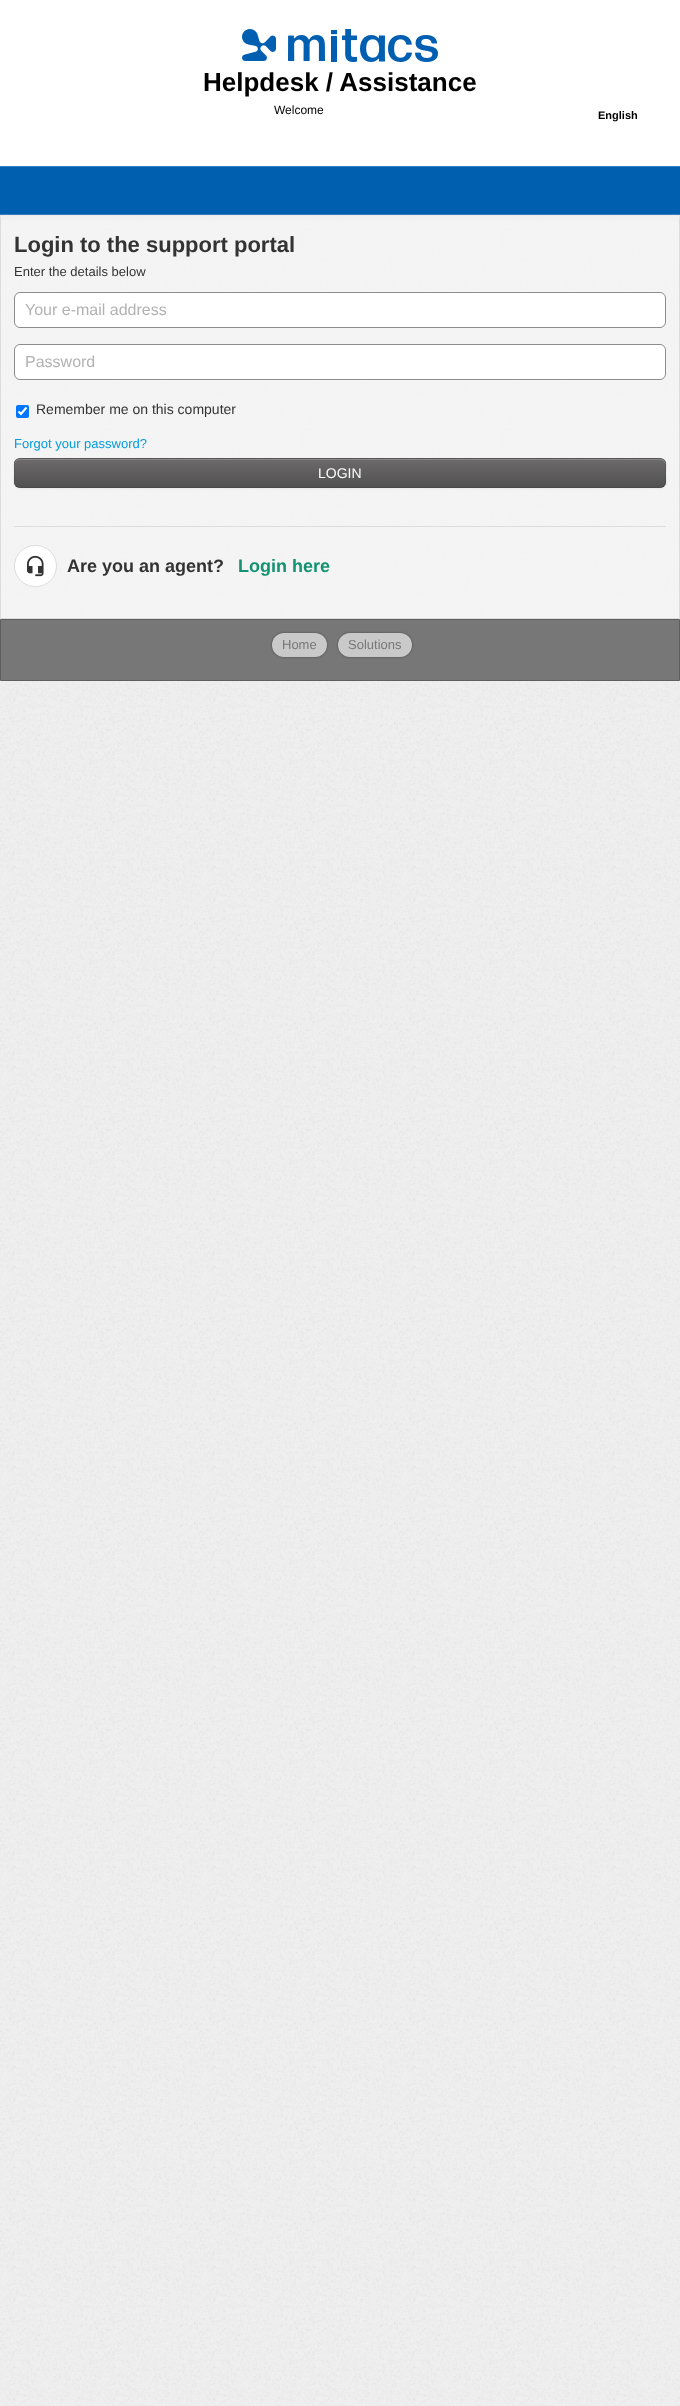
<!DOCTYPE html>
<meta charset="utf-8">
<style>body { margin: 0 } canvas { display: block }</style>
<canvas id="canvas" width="680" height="2406"></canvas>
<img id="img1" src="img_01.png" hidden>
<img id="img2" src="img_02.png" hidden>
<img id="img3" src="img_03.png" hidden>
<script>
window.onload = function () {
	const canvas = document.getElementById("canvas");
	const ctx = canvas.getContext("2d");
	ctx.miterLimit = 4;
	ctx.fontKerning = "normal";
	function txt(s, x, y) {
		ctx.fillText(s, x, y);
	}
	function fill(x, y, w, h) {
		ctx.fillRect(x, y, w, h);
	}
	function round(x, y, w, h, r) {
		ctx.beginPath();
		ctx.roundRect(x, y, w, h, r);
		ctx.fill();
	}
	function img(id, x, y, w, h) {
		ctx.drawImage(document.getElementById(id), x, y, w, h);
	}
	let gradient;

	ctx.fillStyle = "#EFEFEF";
	fill(0, 0, 680, 2406);
	img("img1", 0, 217, 680, 2189);
	ctx.fillStyle = "#FFFFFF";
	fill(0, 0, 680, 166);
	img("img2", 242, 29, 196, 33);
	ctx.fillStyle = "rgba(244, 244, 244, 0.9)";
	fill(1, 217, 678, 401);
	ctx.fillStyle = "#FBFBFB";
	fill(1, 216, 678, 1);
	ctx.strokeStyle = "#DCDCDC";
	ctx.strokeRect(0.5, 215.5, 679, 403);
	ctx.fillStyle = "#EEEEEE";
	ctx.filter = "blur(2px)";
	ctx.beginPath();
	ctx.rect(0, 169, 680, 49);
	ctx.fill();
	ctx.filter = "none";
	ctx.fillStyle = "#005FAF";
	fill(0, 167, 680, 47);
	ctx.fillStyle = "#337FBF";
	fill(0, 166, 680, 1);
	fill(0, 214, 680, 1);
	ctx.fillStyle = "#FFFFFF";
	ctx.beginPath();
	ctx.roundRect(14.5, 292.5, 651, 35, 5.5);
	ctx.fill();
	ctx.strokeStyle = "#8C8C8C";
	ctx.stroke();
	ctx.beginPath();
	ctx.roundRect(14.5, 344.5, 651, 35, 5.5);
	ctx.fill();
	ctx.stroke();
	ctx.fillStyle = "#0075FF";
	round(16, 405, 13, 13, 2);
	ctx.beginPath();
	ctx.moveTo(18.5, 411.5);
	ctx.lineTo(21, 414);
	ctx.lineTo(26.5, 407.5);
	ctx.strokeStyle = "#FFFFFF";
	ctx.lineWidth = 2.1;
	ctx.stroke();
	ctx.fillStyle = "rgba(0, 0, 0, 0.05)";
	ctx.filter = "blur(1px)";
	ctx.beginPath();
	ctx.roundRect(14, 459, 652, 30, 6);
	ctx.fill();
	ctx.filter = "none";
	ctx.fillStyle = "#626060";
	round(14, 458, 652, 30, 6);
	ctx.save();
	ctx.beginPath();
	ctx.roundRect(14, 458, 652, 30, 6);
	ctx.clip();
	gradient = ctx.createLinearGradient(340, 459, 340, 487);
	gradient.addColorStop(0, "#6C6A6A");
	gradient.addColorStop(1, "#525151");
	ctx.fillStyle = gradient;
	fill(14, 459, 652, 28);
	ctx.restore();
	ctx.fillStyle = "#898888";
	ctx.beginPath();
	ctx.moveTo(20, 460);
	ctx.lineTo(660, 460);
	ctx.bezierCurveTo(663, 460, 665, 462, 665, 465);
	ctx.lineTo(665, 464);
	ctx.bezierCurveTo(665, 461, 663, 459, 660, 459);
	ctx.lineTo(20, 459);
	ctx.bezierCurveTo(17, 459, 15, 461, 15, 464);
	ctx.lineTo(15, 465);
	ctx.bezierCurveTo(15, 462, 17, 460, 20, 460);
	ctx.closePath();
	ctx.fill();
	ctx.beginPath();
	ctx.moveTo(664, 486);
	ctx.bezierCurveTo(663, 487, 661.5, 487.5, 660, 487.5);
	ctx.lineTo(20, 487.5);
	ctx.bezierCurveTo(18.5, 487.5, 17, 487, 16, 486);
	ctx.strokeStyle = "rgba(0, 0, 0, 0.25)";
	ctx.lineWidth = 1;
	ctx.stroke();
	ctx.beginPath();
	ctx.moveTo(16, 486);
	ctx.bezierCurveTo(13, 483, 14.5, 476.5, 14.5, 473);
	ctx.bezierCurveTo(14.5, 468.5, 12.5, 459, 19.5, 458.5);
	ctx.lineTo(660, 458.5);
	ctx.bezierCurveTo(661.5, 458.5, 663, 459, 664.5, 460.5);
	ctx.bezierCurveTo(667, 463.5, 665.5, 469.5, 665.5, 473);
	ctx.bezierCurveTo(665.5, 476.5, 667, 483, 664, 486);
	ctx.strokeStyle = "rgba(0, 0, 0, 0.1)";
	ctx.stroke();
	ctx.fillStyle = "#DDDDDD";
	fill(14, 526, 652, 1);
	ctx.fillStyle = "#FFFFFF";
	ctx.beginPath();
	ctx.roundRect(14.5, 545.5, 42, 41, 20.5);
	ctx.fill();
	ctx.strokeStyle = "#DDDDDD";
	ctx.stroke();
	img("img3", 27, 555, 17, 22);
	ctx.fillStyle = "#777777";
	ctx.beginPath();
	ctx.rect(0.5, 619.5, 679, 61);
	ctx.fill();
	ctx.strokeStyle = "#5E5E5E";
	ctx.stroke();
	ctx.fillStyle = "#494949";
	ctx.filter = "blur(1px)";
	ctx.beginPath();
	ctx.roundRect(272, 633, 55, 24, 12);
	ctx.fill();
	ctx.filter = "none";
	ctx.fillStyle = "#C9C9C9";
	round(272, 633, 55, 24, 12);
	ctx.fillStyle = "#494949";
	ctx.filter = "blur(1px)";
	ctx.beginPath();
	ctx.roundRect(338, 633, 74, 24, 12);
	ctx.fill();
	ctx.filter = "none";
	ctx.fillStyle = "#C9C9C9";
	round(338, 633, 74, 24, 12);
	ctx.font = "bold 26px Liberation Sans";
	ctx.fillStyle = "#000000";
	txt("Helpdesk / Assistance", 203, 91);
	ctx.font = "12px Liberation Sans";
	txt("Welcome", 274, 114);
	ctx.font = "bold 11px Liberation Sans";
	txt("English", 598, 119);
	ctx.font = "bold 22px Liberation Sans";
	ctx.fillStyle = "#333333";
	txt("Login to the support portal", 14, 252);
	ctx.font = "13px Liberation Sans";
	txt("Enter the details below", 14, 276);
	ctx.font = "16px Liberation Sans";
	ctx.fillStyle = "#B2B2B2";
	txt("Your e-mail address", 25, 315);
	txt("Password", 25, 367);
	ctx.font = "14px Liberation Sans";
	ctx.fillStyle = "#333333";
	txt("Remember me on this computer", 36, 414);
	ctx.font = "13px Liberation Sans";
	ctx.fillStyle = "#049CDB";
	txt("Forgot your password?", 14, 448);
	ctx.font = "14px Liberation Sans";
	ctx.fillStyle = "#FFFFFF";
	txt("LOGIN", 318, 478);
	ctx.font = "bold 18px Liberation Sans";
	ctx.fillStyle = "#333333";
	txt("Are you an agent?", 67, 572);
	ctx.fillStyle = "#139272";
	txt("Login here", 238, 572);
	ctx.font = "13px Liberation Sans";
	ctx.fillStyle = "#777777";
	txt("Home", 282, 649);
	txt("Solutions", 348, 649);
};
</script>
